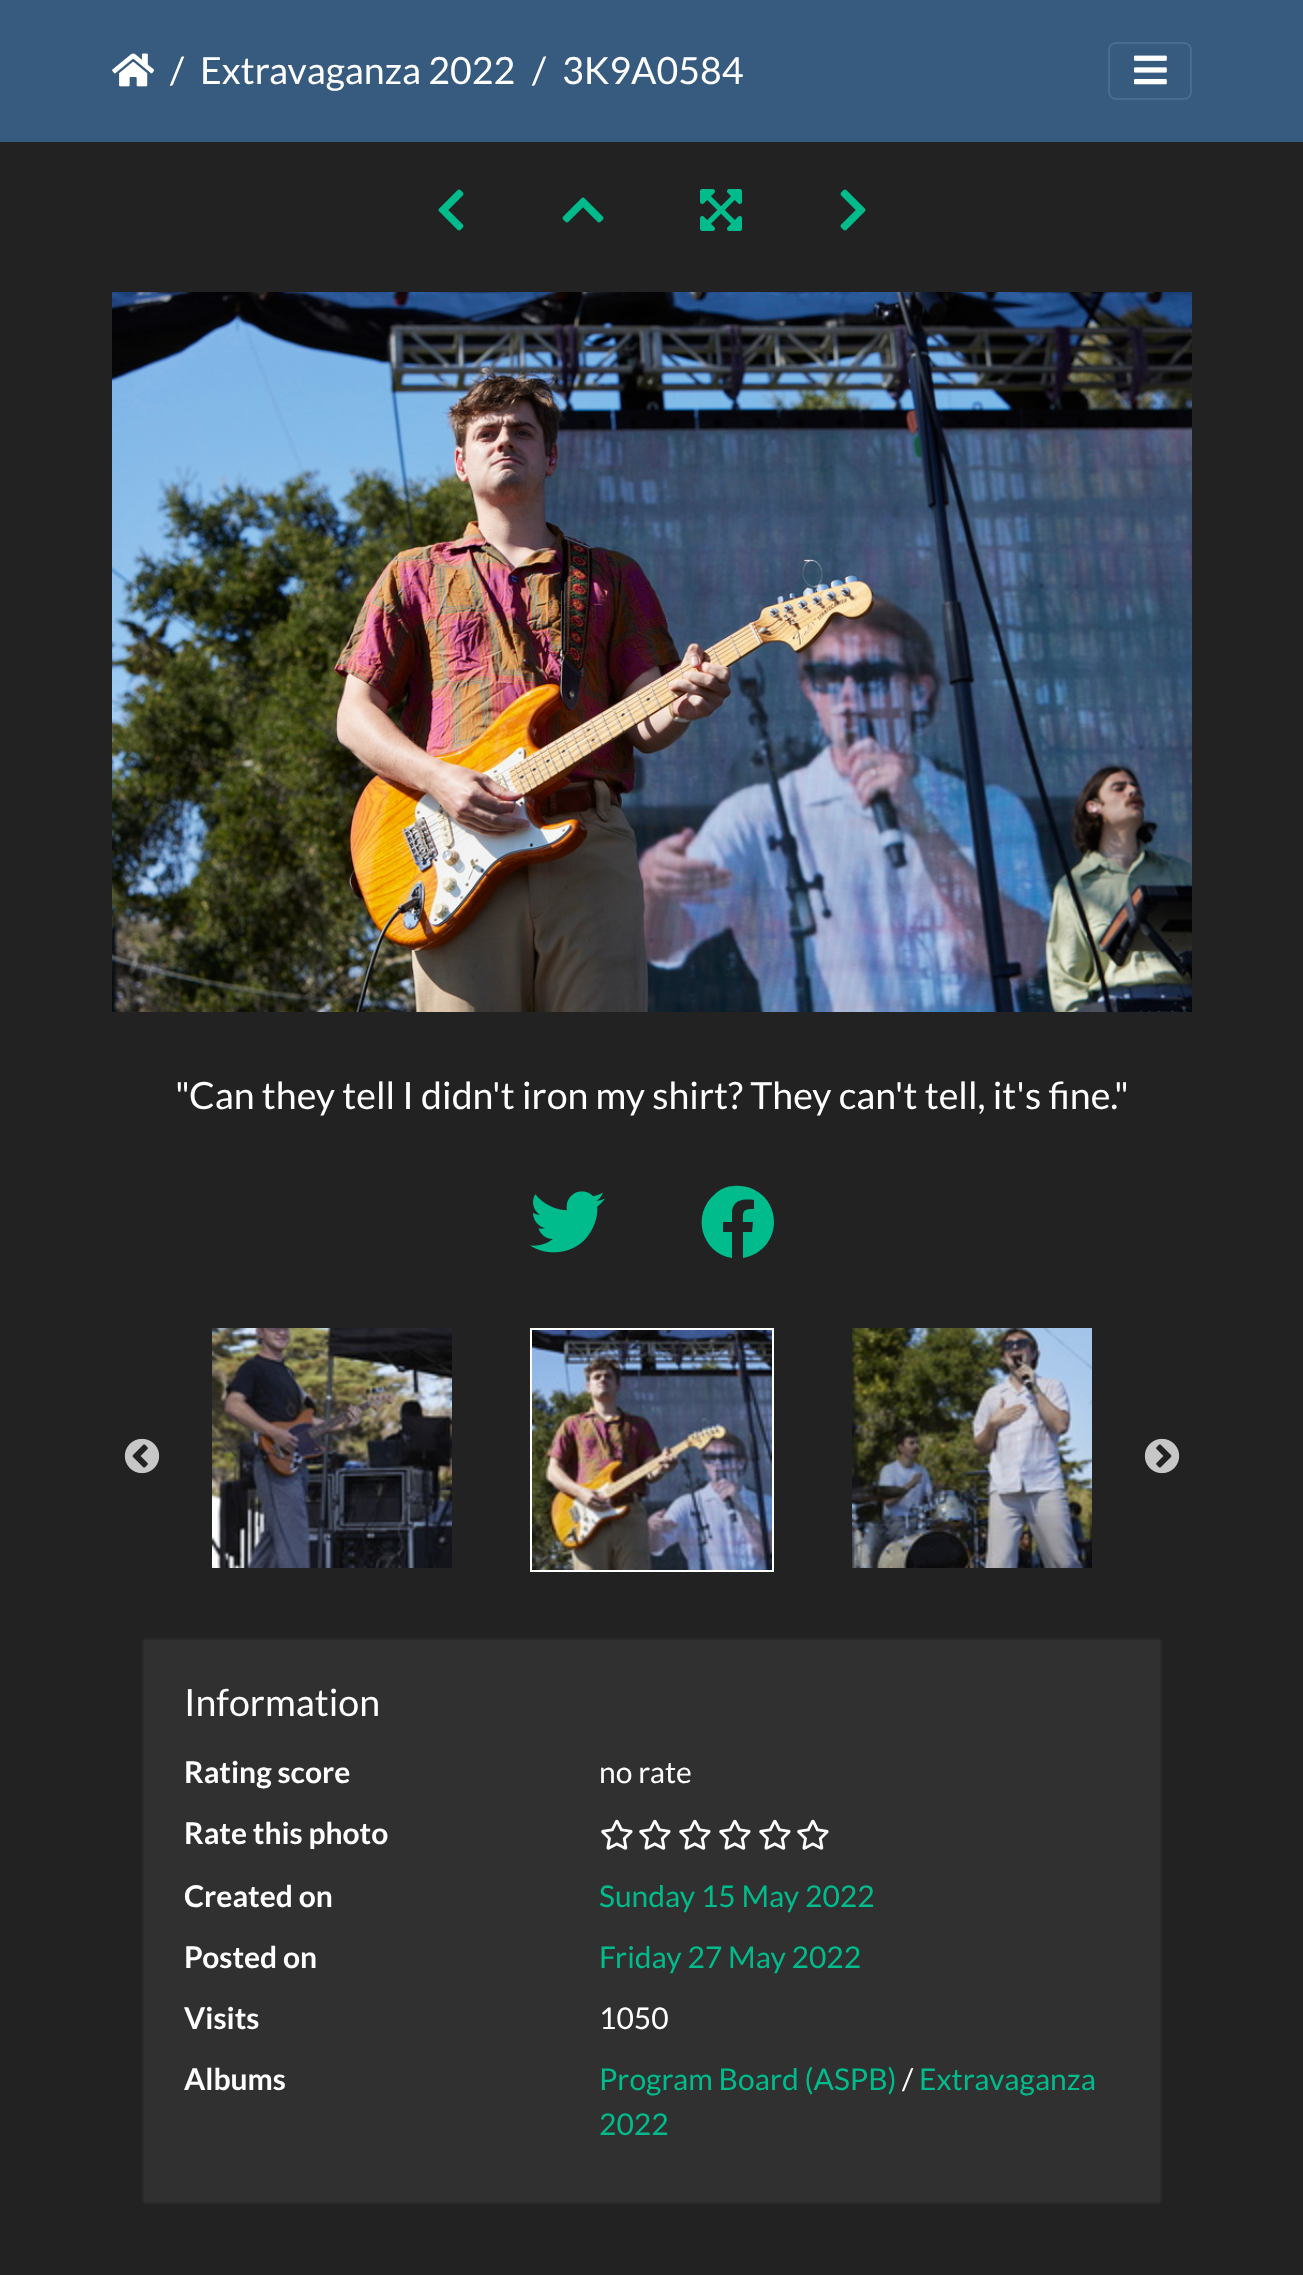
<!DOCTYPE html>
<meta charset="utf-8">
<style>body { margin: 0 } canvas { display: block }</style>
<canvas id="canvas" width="1303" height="2275"></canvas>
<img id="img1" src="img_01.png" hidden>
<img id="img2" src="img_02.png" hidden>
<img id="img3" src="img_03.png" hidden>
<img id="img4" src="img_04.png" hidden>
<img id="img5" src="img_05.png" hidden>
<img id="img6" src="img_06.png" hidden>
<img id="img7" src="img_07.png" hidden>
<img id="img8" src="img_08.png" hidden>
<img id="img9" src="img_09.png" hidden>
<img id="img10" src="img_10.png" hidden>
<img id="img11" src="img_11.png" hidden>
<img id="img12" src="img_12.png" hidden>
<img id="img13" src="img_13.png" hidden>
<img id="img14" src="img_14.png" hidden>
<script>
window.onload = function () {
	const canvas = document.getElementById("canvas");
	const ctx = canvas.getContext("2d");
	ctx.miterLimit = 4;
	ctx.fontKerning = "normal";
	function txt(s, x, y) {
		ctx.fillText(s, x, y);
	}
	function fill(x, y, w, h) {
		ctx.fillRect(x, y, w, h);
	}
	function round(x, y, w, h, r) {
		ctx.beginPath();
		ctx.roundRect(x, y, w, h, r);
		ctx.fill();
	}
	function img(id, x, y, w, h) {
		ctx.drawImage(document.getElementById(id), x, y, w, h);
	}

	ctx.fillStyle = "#222222";
	fill(0, 0, 1303, 2275);
	ctx.fillStyle = "#375A7F";
	fill(0, 0, 1303, 142);
	img("img1", 112, 53, 42, 34);
	ctx.beginPath();
	ctx.roundRect(1109, 43, 82, 56, 7);
	ctx.strokeStyle = "#4B6B8C";
	ctx.lineWidth = 2;
	ctx.stroke();
	img("img2", 1134, 55, 33, 30);
	img("img3", 438, 189, 26, 42);
	img("img4", 562, 197, 42, 26);
	img("img5", 700, 189, 42, 42);
	img("img6", 840, 189, 26, 42);
	img("img7", 112, 292, 1080, 720);
	img("img8", 530, 1191, 75, 62);
	ctx.fillStyle = "#00BC8C";
	ctx.beginPath();
	ctx.moveTo(774, 1222);
	ctx.bezierCurveTo(774, 1240, 761, 1255, 743, 1258);
	ctx.lineTo(743, 1232);
	ctx.lineTo(752, 1232);
	ctx.lineTo(753, 1222);
	ctx.lineTo(743, 1222);
	ctx.bezierCurveTo(743, 1211, 742, 1209, 754, 1209);
	ctx.lineTo(754, 1200);
	ctx.bezierCurveTo(744, 1199, 734, 1199, 732, 1211);
	ctx.lineTo(732, 1222);
	ctx.lineTo(723, 1222);
	ctx.lineTo(723, 1232);
	ctx.lineTo(732, 1232);
	ctx.lineTo(732, 1258);
	ctx.bezierCurveTo(701, 1253, 691, 1214, 715, 1194);
	ctx.bezierCurveTo(720, 1189, 727, 1186, 734, 1186);
	ctx.bezierCurveTo(742, 1185, 751, 1187, 758, 1192);
	ctx.bezierCurveTo(768, 1198, 774, 1210, 774, 1222);
	ctx.closePath();
	ctx.fill();
	img("img9", 124, 1438, 36, 36);
	img("img10", 212, 1328, 240, 240);
	ctx.strokeStyle = "#FFFFFF";
	ctx.strokeRect(531, 1329, 242, 242);
	img("img11", 532, 1330, 240, 240);
	img("img12", 852, 1328, 240, 240);
	img("img13", 1144, 1438, 36, 36);
	ctx.fillStyle = "#303030";
	round(142, 1638, 1020, 566, 4);
	ctx.beginPath();
	ctx.roundRect(143, 1639, 1018, 564, 3);
	ctx.strokeStyle = "rgba(0, 0, 0, 0.12)";
	ctx.stroke();
	img("img14", 601, 1819, 32, 31);
	img("img14", 639, 1819, 32, 31);
	img("img14", 679, 1819, 32, 31);
	img("img14", 719, 1819, 32, 31);
	img("img14", 759, 1819, 32, 31);
	img("img14", 797, 1819, 32, 31);
	ctx.font = "37.5px Lato";
	ctx.fillStyle = "#FFFFFF";
	txt("/", 170, 84);
	txt("Extravaganza 2022", 200, 84);
	txt("/", 532, 84);
	txt("3K9A0584", 562, 84);
	txt("\"Can they tell I didn't iron my shirt? They can't tell, it's fine.\"", 175, 1109);
	txt("Information", 184, 1716);
	ctx.font = "bold 30px Lato";
	txt("Rating score", 184, 1783);
	ctx.font = "30px Lato";
	txt("no rate", 599, 1783);
	ctx.font = "bold 30px Lato";
	txt("Rate this photo", 184, 1844);
	txt("Created on", 184, 1907);
	ctx.font = "30px Lato";
	ctx.fillStyle = "#00BC8C";
	txt("Sunday 15 May 2022", 599, 1907);
	ctx.font = "bold 30px Lato";
	ctx.fillStyle = "#FFFFFF";
	txt("Posted on", 184, 1968);
	ctx.font = "30px Lato";
	ctx.fillStyle = "#00BC8C";
	txt("Friday 27 May 2022", 599, 1968);
	ctx.font = "bold 30px Lato";
	ctx.fillStyle = "#FFFFFF";
	txt("Visits", 184, 2029);
	ctx.font = "30px Lato";
	txt("1050", 599, 2029);
	ctx.font = "bold 30px Lato";
	txt("Albums", 184, 2090);
	ctx.font = "30px Lato";
	ctx.fillStyle = "#00BC8C";
	txt("Program Board (ASPB)", 599, 2090);
	ctx.fillStyle = "#FFFFFF";
	txt("/", 902, 2090);
	ctx.fillStyle = "#00BC8C";
	txt("Extravaganza", 919, 2090);
	txt("2022", 599, 2135);
};
</script>
